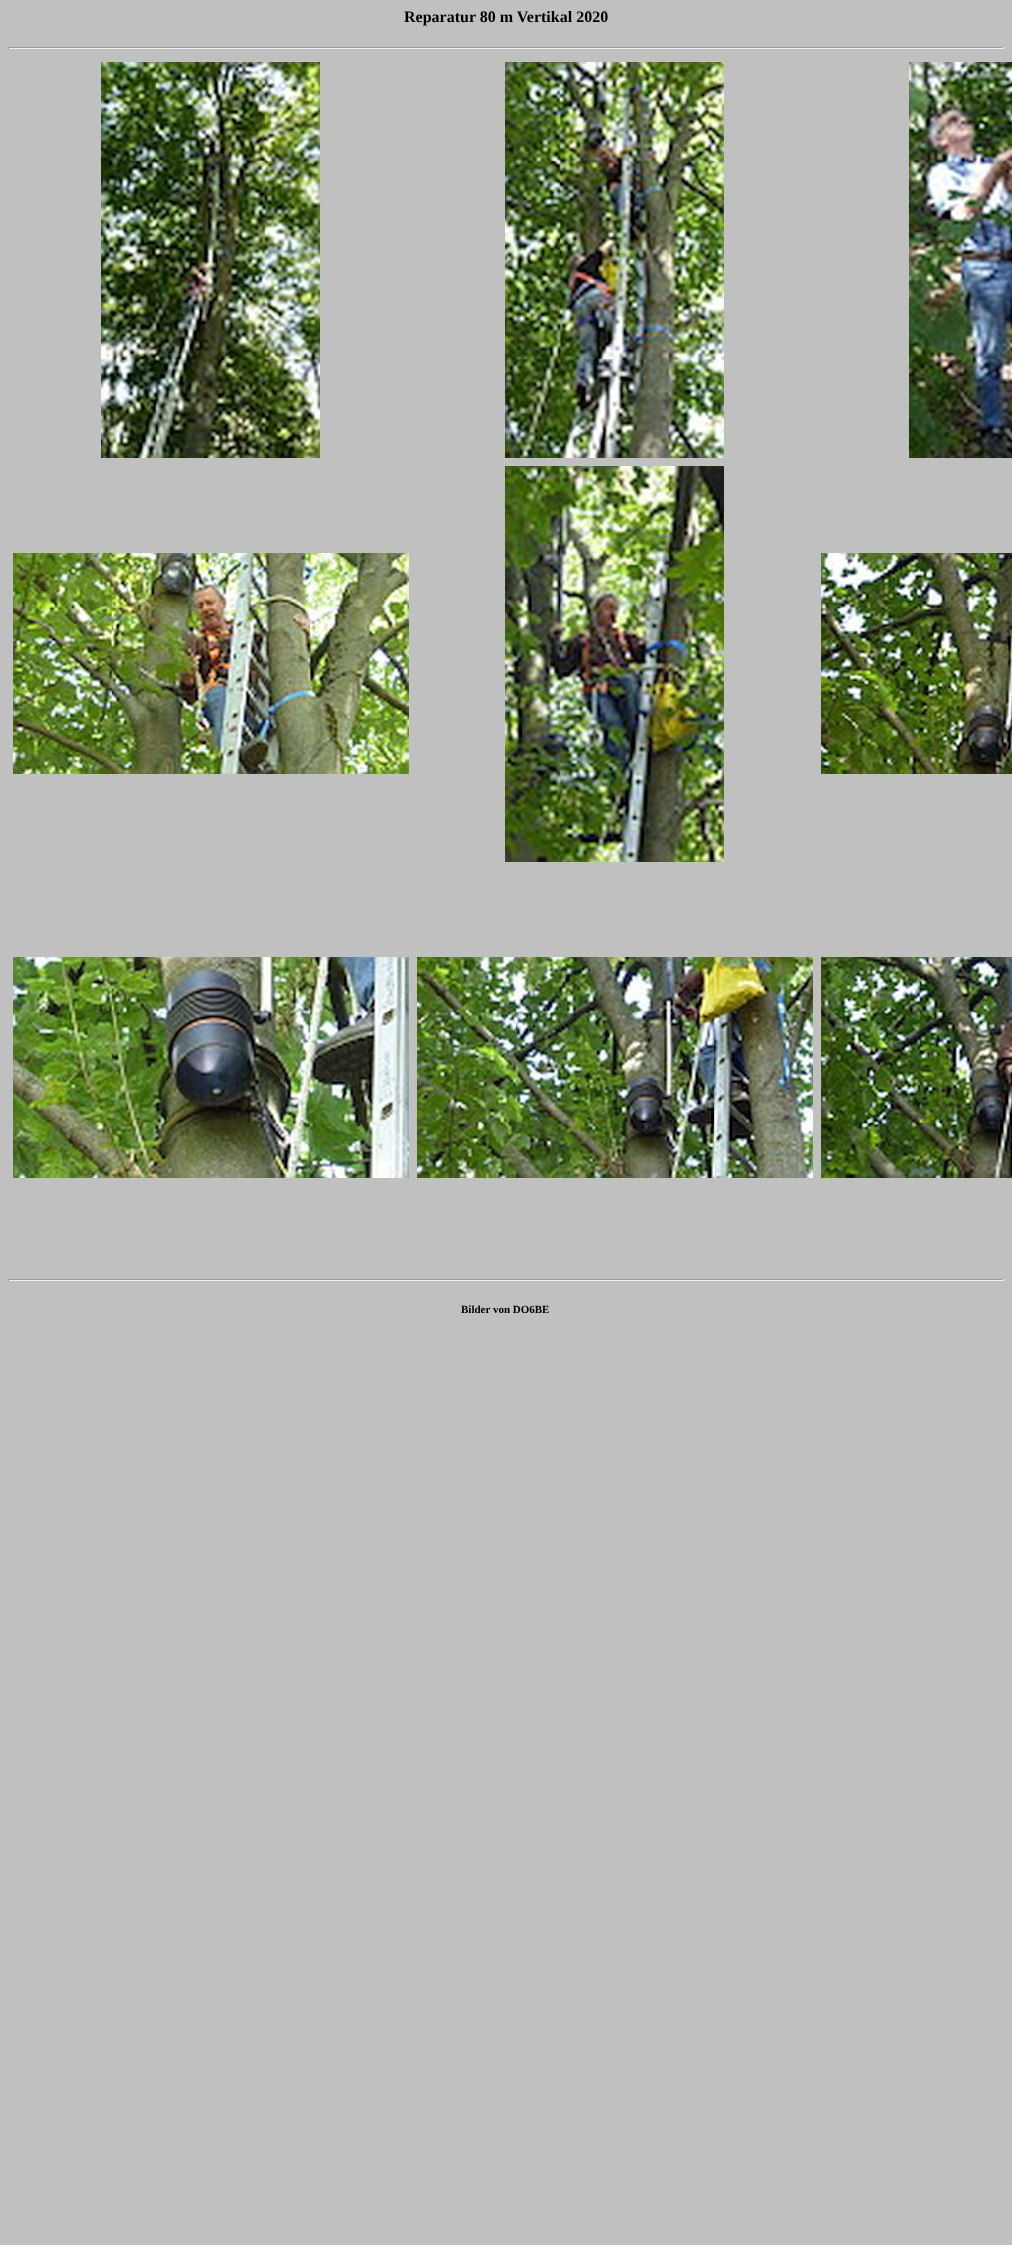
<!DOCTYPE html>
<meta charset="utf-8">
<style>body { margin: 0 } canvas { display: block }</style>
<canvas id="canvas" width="1012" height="2245"></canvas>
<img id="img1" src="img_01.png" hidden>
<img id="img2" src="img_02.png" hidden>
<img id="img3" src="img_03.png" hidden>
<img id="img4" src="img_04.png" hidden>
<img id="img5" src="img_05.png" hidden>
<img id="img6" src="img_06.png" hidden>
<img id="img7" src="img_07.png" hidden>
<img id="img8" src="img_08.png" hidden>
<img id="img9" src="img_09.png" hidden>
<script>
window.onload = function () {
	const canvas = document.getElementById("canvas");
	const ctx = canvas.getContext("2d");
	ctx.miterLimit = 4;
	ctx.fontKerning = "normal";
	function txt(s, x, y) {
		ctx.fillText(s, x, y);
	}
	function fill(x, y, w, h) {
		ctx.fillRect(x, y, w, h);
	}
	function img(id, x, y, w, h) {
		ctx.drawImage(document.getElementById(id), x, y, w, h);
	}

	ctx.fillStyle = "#C0C0C0";
	fill(0, 0, 1012, 2245);
	ctx.fillStyle = "#9F9F9F";
	fill(8, 47, 996, 1);
	ctx.fillStyle = "#EEEEEE";
	fill(1003, 47, 1, 2);
	fill(8, 48, 996, 1);
	ctx.fillStyle = "#9F9F9F";
	fill(8, 47, 1, 2);
	img("img1", 91, 60, 241, 400);
	img("img2", 495, 60, 240, 400);
	img("img3", 899, 60, 113, 400);
	img("img4", 11, 544, 400, 240);
	img("img5", 495, 464, 240, 400);
	img("img6", 819, 544, 193, 240);
	img("img7", 11, 948, 400, 240);
	img("img8", 415, 948, 400, 240);
	img("img9", 819, 948, 193, 240);
	fill(8, 1279, 996, 1);
	ctx.fillStyle = "#EEEEEE";
	fill(1003, 1279, 1, 2);
	fill(8, 1280, 996, 1);
	ctx.fillStyle = "#9F9F9F";
	fill(8, 1279, 1, 2);
	ctx.font = "bold 16px Liberation Serif";
	ctx.fillStyle = "#000000";
	txt("Reparatur 80 m Vertikal 2020", 404, 22);
	ctx.font = "bold 11px Liberation Serif";
	txt("Bilder von DO6BE", 461, 1313);
};
</script>
